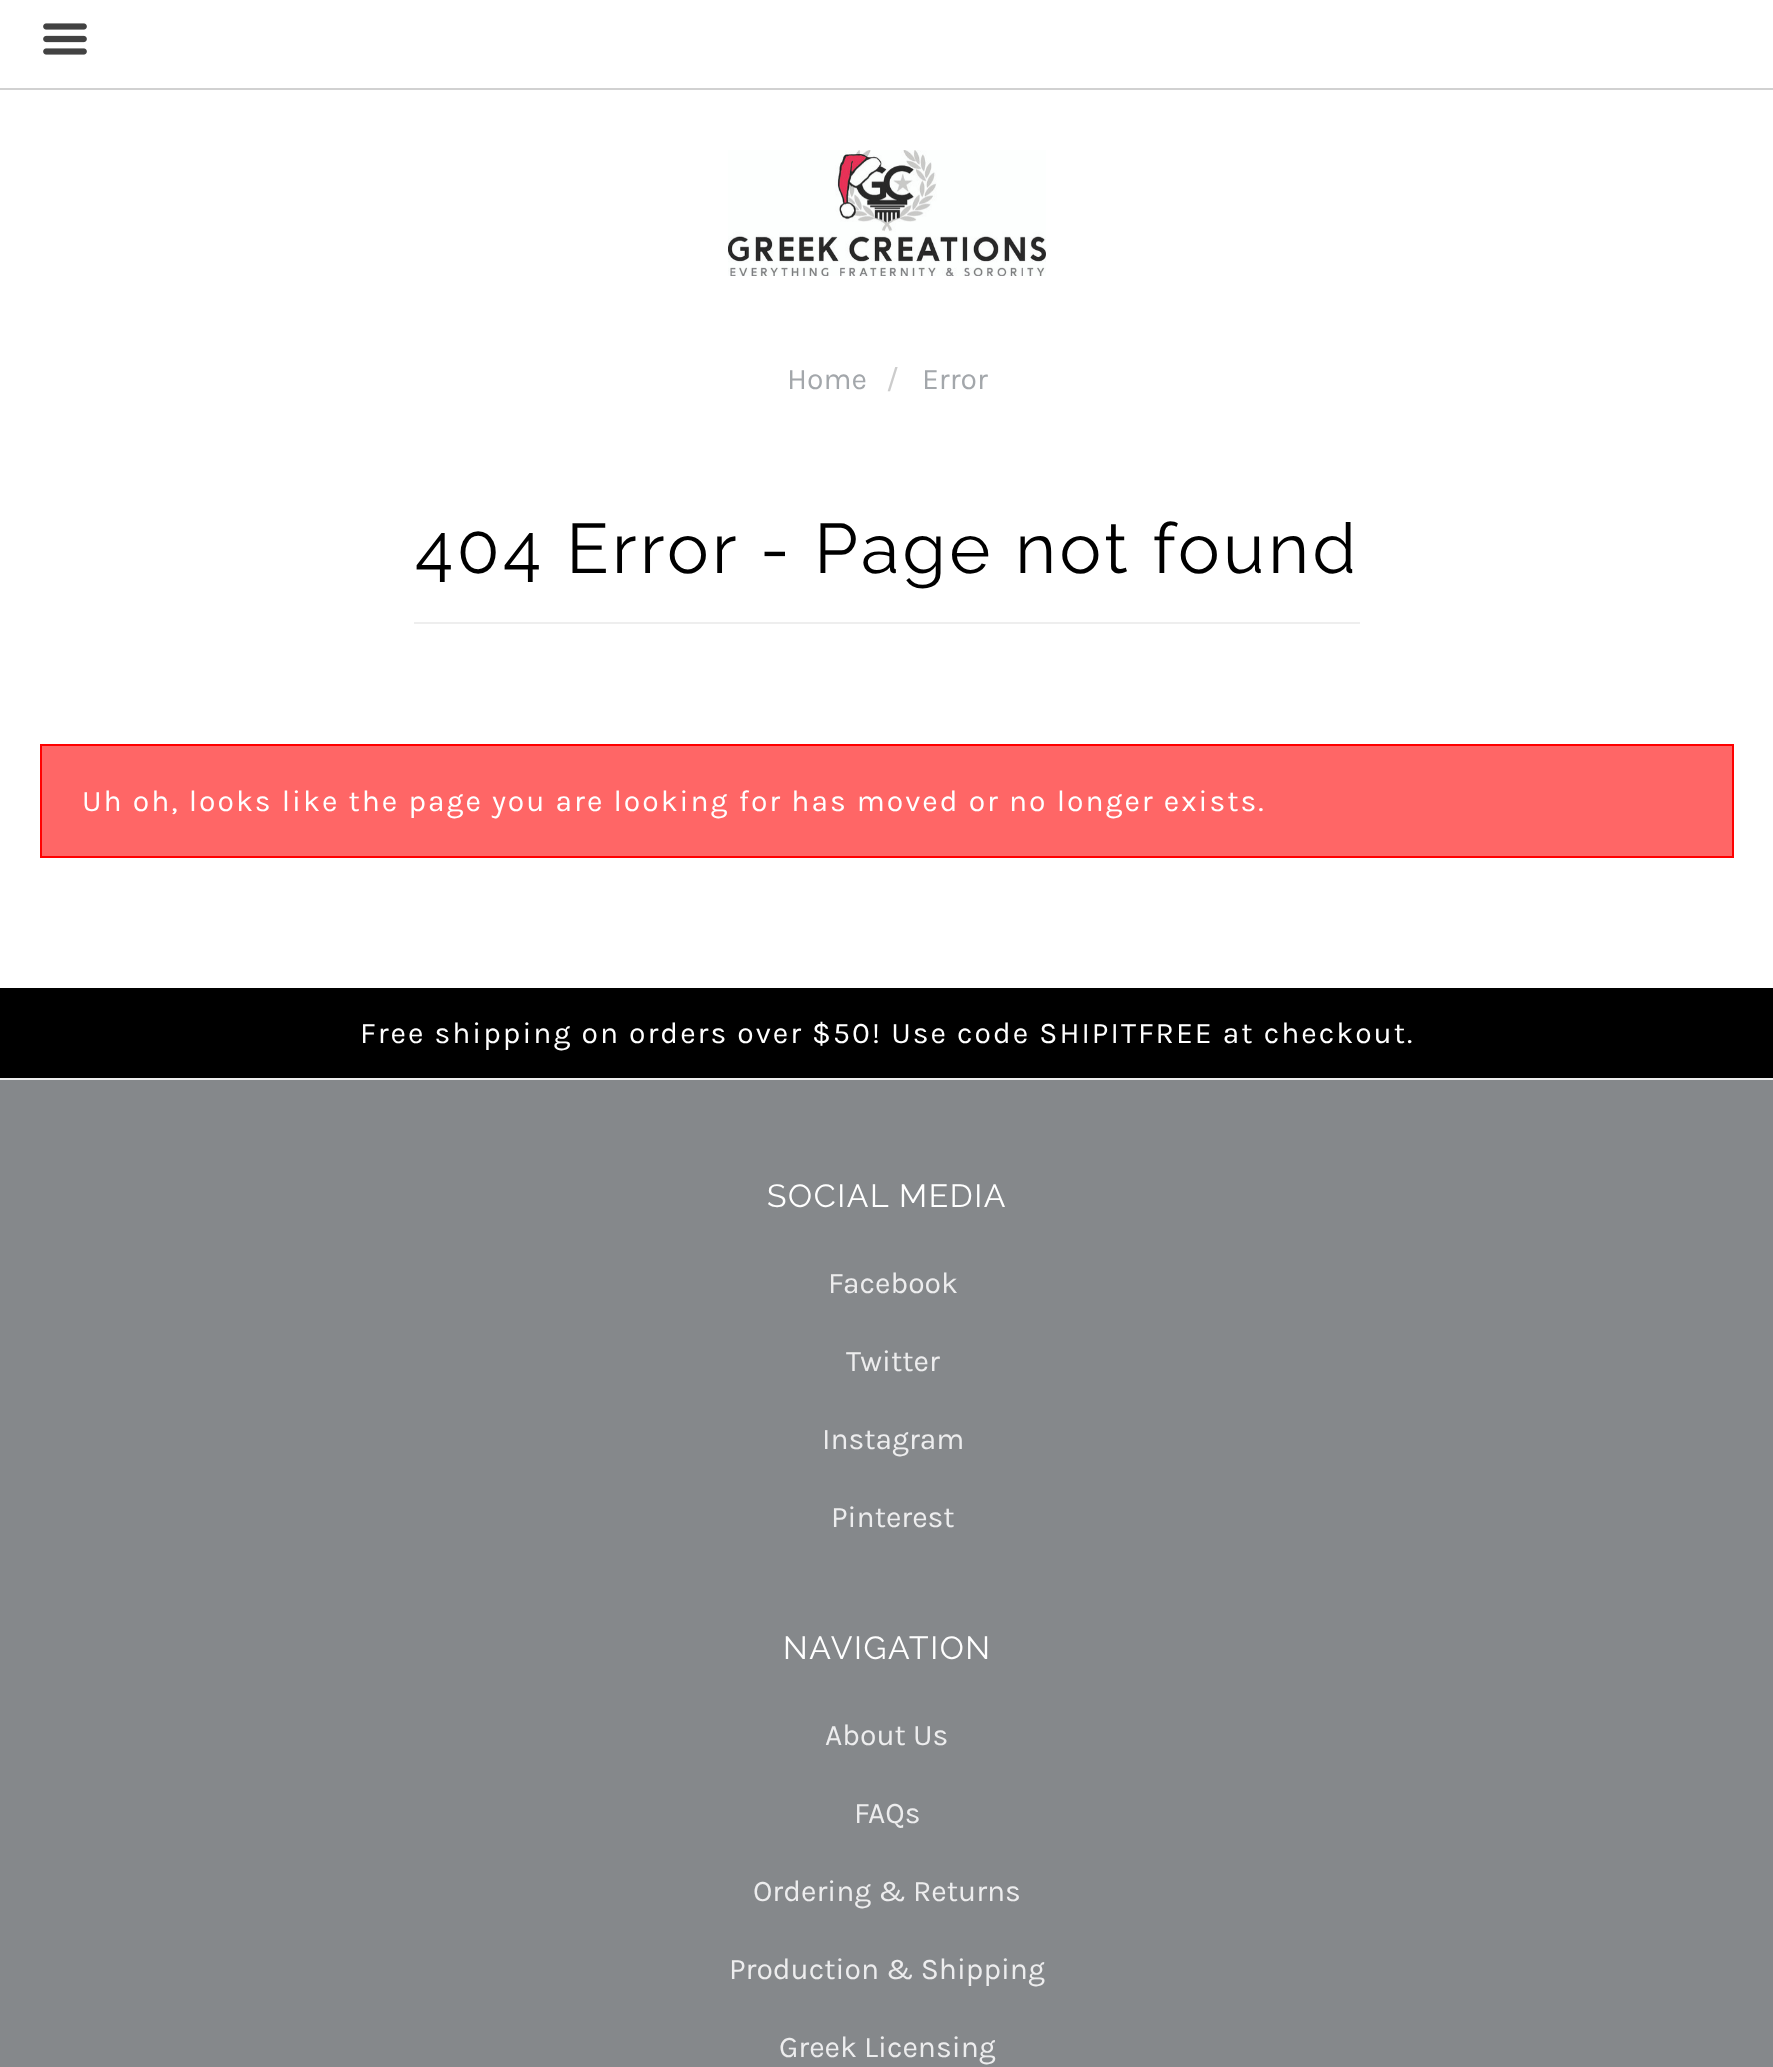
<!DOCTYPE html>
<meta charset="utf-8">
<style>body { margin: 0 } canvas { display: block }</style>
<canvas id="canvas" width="1773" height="2067"></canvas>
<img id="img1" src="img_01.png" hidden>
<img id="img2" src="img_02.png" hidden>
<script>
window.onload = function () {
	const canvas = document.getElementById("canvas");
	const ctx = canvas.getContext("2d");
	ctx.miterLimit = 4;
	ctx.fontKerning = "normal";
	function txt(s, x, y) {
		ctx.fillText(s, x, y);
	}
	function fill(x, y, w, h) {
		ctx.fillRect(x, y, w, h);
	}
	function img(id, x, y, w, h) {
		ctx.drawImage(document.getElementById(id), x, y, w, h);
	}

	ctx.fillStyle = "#FFFFFF";
	fill(0, 0, 1773, 2067);
	ctx.fillStyle = "#D1D1D1";
	fill(0, 88, 1773, 2);
	img("img1", 43, 23, 44, 32);
	img("img2", 728, 150, 318, 126);
	ctx.fillStyle = "#EEEEEE";
	fill(414, 622, 946, 2);
	ctx.fillStyle = "#FF6666";
	ctx.beginPath();
	ctx.rect(41, 745, 1692, 112);
	ctx.fill();
	ctx.strokeStyle = "#FF0000";
	ctx.lineWidth = 2;
	ctx.stroke();
	ctx.fillStyle = "#000000";
	fill(0, 988, 1773, 90);
	ctx.fillStyle = "#85888B";
	fill(0, 1080, 1773, 987);
	ctx.fillStyle = "#EEEEEE";
	fill(0, 1078, 1773, 2);
	ctx.font = "30px Karla";
	ctx.fillStyle = "#A3A7AB";
	txt("Home", 787, 389);
	ctx.fillStyle = "#CCCCCC";
	txt("/", 886, 389);
	ctx.fillStyle = "#A3A7AB";
	txt("Error", 922, 389);
	ctx.letterSpacing = "3.5px";
	ctx.font = "70px Raleway";
	ctx.fillStyle = "#000000";
	txt("404 Error - Page not found", 415, 573);
	ctx.letterSpacing = "2px";
	ctx.font = "30px Karla";
	ctx.fillStyle = "#FFFFFF";
	txt("Uh oh, looks like the page you are looking for has moved or no longer exists.", 82, 811);
	txt("Free shipping on orders over $50! Use code SHIPITFREE at checkout.", 360, 1043);
	ctx.letterSpacing = "1.6px";
	ctx.font = "32px Raleway";
	txt("SOCIAL MEDIA", 767, 1207);
	ctx.letterSpacing = "0px";
	ctx.font = "30px Karla";
	ctx.fillStyle = "#EDEDEE";
	txt("Facebook", 828, 1293);
	txt("Twitter", 846, 1371);
	txt("Instagram", 822, 1449);
	txt("Pinterest", 831, 1527);
	ctx.letterSpacing = "1.6px";
	ctx.font = "32px Raleway";
	ctx.fillStyle = "#FFFFFF";
	txt("NAVIGATION", 783, 1659);
	ctx.letterSpacing = "0px";
	ctx.font = "30px Karla";
	ctx.fillStyle = "#EDEDEE";
	txt("About Us", 825, 1745);
	txt("FAQs", 854, 1823);
	txt("Ordering & Returns", 753, 1901);
	txt("Production & Shipping", 729, 1979);
	txt("Greek Licensing", 779, 2057);
};
</script>
